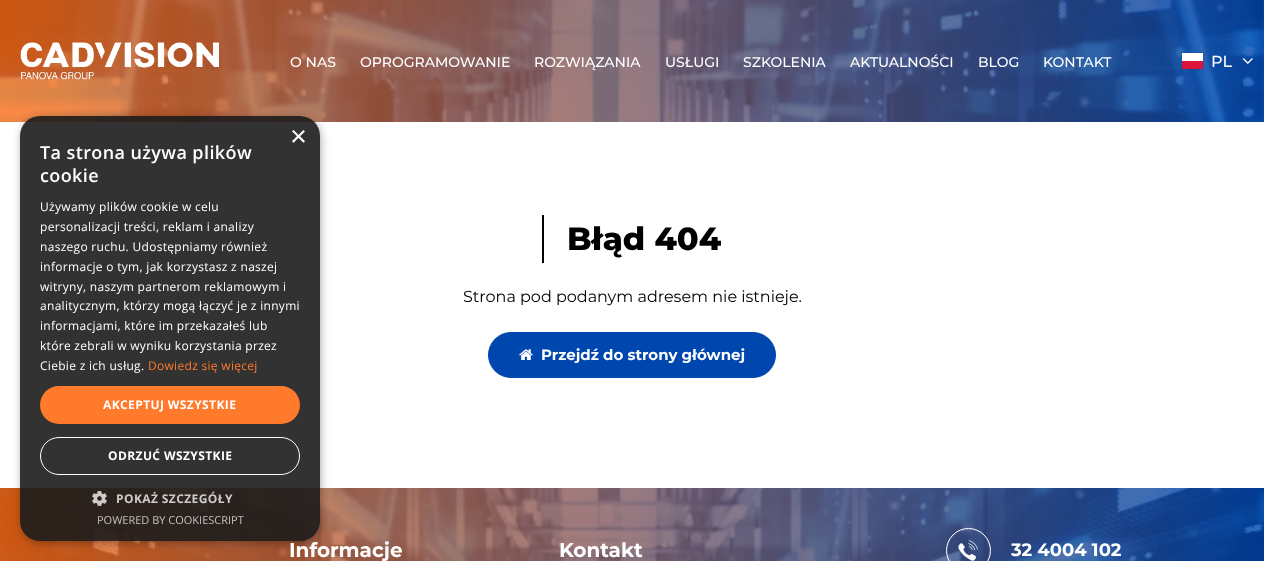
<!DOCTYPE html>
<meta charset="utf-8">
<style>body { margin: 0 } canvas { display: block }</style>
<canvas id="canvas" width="1264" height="561"></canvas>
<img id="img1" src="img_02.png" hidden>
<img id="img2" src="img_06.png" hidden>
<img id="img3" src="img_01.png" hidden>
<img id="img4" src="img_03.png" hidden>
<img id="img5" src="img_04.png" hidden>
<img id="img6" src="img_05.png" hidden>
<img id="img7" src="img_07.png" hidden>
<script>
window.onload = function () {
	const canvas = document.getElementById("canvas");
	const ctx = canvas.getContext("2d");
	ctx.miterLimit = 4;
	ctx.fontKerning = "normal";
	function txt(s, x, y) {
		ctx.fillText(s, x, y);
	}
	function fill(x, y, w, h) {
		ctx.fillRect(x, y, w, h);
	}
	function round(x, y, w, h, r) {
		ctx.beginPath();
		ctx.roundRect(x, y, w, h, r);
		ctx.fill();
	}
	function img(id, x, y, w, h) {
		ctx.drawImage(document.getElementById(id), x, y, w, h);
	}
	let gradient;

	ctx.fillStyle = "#FFFFFF";
	fill(0, 0, 1264, 561);
	img("img1", 0, 0, 1264, 122);
	gradient = ctx.createLinearGradient(0, 61, 1264, 61);
	gradient.addColorStop(0, "rgba(255, 107, 19, 0.8)");
	gradient.addColorStop(1, "rgba(0, 70, 175, 0.8)");
	ctx.fillStyle = gradient;
	fill(0, 0, 1264, 122);
	img("img2", 0, 488, 1264, 73);
	ctx.save();
	ctx.beginPath();
	ctx.moveTo(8, 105);
	ctx.lineTo(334, 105);
	ctx.lineTo(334, 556);
	ctx.lineTo(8, 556);
	ctx.closePath();
	ctx.moveTo(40, 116);
	ctx.lineTo(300, 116);
	ctx.bezierCurveTo(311, 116, 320, 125, 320, 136);
	ctx.lineTo(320, 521);
	ctx.bezierCurveTo(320, 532, 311, 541, 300, 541);
	ctx.lineTo(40, 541);
	ctx.bezierCurveTo(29, 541, 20, 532, 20, 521);
	ctx.lineTo(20, 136);
	ctx.bezierCurveTo(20, 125, 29, 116, 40, 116);
	ctx.closePath();
	ctx.clip("evenodd");
	ctx.fillStyle = "rgba(0, 0, 0, 0.32)";
	ctx.filter = "blur(4px)";
	ctx.beginPath();
	ctx.roundRect(21, 118, 300, 425, 20);
	ctx.fill();
	ctx.filter = "none";
	ctx.restore();
	ctx.fillStyle = "rgba(28, 28, 28, 0.9)";
	round(20, 116, 300, 425, 20);
	ctx.fillStyle = "#FF7A2B";
	round(40, 386, 260, 38, 19);
	ctx.beginPath();
	ctx.roundRect(40.5, 437.5, 259, 37, 18.5);
	ctx.strokeStyle = "#FFFFFF";
	ctx.stroke();
	img("img3", 92, 491, 15, 15);
	img("img4", 20, 42, 199, 38);
	ctx.strokeStyle = "rgba(0, 0, 0, 0.1)";
	ctx.strokeRect(1181.5, 52.5, 22, 17);
	ctx.fillStyle = "#FFFFFF";
	fill(1182, 53, 21, 8);
	ctx.fillStyle = "#DC143C";
	fill(1182, 61, 21, 8);
	img("img5", 1242, 58, 11, 6);
	ctx.fillStyle = "#000000";
	fill(542, 215, 2, 48);
	ctx.fillStyle = "#0046AF";
	ctx.beginPath();
	ctx.roundRect(488.5, 332.5, 287, 45, 22.5);
	ctx.fill();
	ctx.strokeStyle = "#0046AF";
	ctx.stroke();
	img("img6", 519, 349, 14, 11);
	ctx.beginPath();
	ctx.arc(968.5, 550.5, 22, 0, Math.PI * 2);
	ctx.strokeStyle = "#FFFFFF";
	ctx.stroke();
	img("img7", 947, 529, 43, 32);
	ctx.font = "29px Liberation Sans";
	ctx.fillStyle = "#FFFFFF";
	txt("×", 290, 146);
	ctx.letterSpacing = "0.4px";
	ctx.font = "600 18px Open Sans";
	txt("Ta strona używa plików", 40, 159);
	txt("cookie", 40, 182);
	ctx.letterSpacing = "0.3px";
	ctx.font = "12px Open Sans";
	txt("Używamy plików cookie w celu", 40, 211);
	txt("personalizacji treści, reklam i analizy", 40, 231);
	txt("naszego ruchu. Udostępniamy również", 40, 251);
	txt("informacje o tym, jak korzystasz z naszej", 40, 271);
	txt("witryny, naszym partnerom reklamowym i", 40, 291);
	txt("analitycznym, którzy mogą łączyć je z innymi", 40, 310);
	txt("informacjami, które im przekazałeś lub", 40, 330);
	txt("które zebrali w wyniku korzystania przez", 40, 350);
	txt("Ciebie z ich usług.", 40, 370);
	ctx.fillStyle = "#FF7A2B";
	txt("Dowiedz się więcej", 148, 370);
	ctx.letterSpacing = "0.4px";
	ctx.font = "bold 12px Open Sans";
	ctx.fillStyle = "#FFFFFF";
	txt("AKCEPTUJ WSZYSTKIE", 103, 409);
	txt("ODRZUĆ WSZYSTKIE", 108, 460);
	ctx.fillStyle = "#CDCBCA";
	txt("POKAŻ SZCZEGÓŁY", 116, 503);
	ctx.letterSpacing = "0px";
	ctx.font = "11px Open Sans";
	ctx.fillStyle = "#C4C1C0";
	txt("POWERED BY COOKIESCRIPT", 97, 524);
	ctx.font = "500 14px Montserrat";
	ctx.fillStyle = "#FFFFFF";
	txt("O NAS", 290, 67);
	txt("OPROGRAMOWANIE", 360, 67);
	txt("ROZWIĄZANIA", 534, 67);
	txt("USŁUGI", 665, 67);
	txt("SZKOLENIA", 743, 67);
	txt("AKTUALNOŚCI", 850, 67);
	txt("BLOG", 978, 67);
	txt("KONTAKT", 1043, 67);
	ctx.font = "500 16px Montserrat";
	txt("PL", 1211, 67);
	ctx.font = "800 32px Montserrat";
	ctx.fillStyle = "#000000";
	txt("Błąd 404", 567, 250);
	ctx.font = "16px Montserrat";
	txt("Strona pod podanym adresem nie istnieje.", 463, 302);
	ctx.font = "bold 15px Montserrat";
	ctx.fillStyle = "#FFFFFF";
	txt("Przejdź do strony głównej", 541, 360);
	ctx.font = "bold 20px Montserrat";
	txt("Informacje", 289, 557);
	txt("Kontakt", 559, 557);
	ctx.font = "bold 18px Montserrat";
	txt("32 4004 102", 1011, 556);
};
</script>
